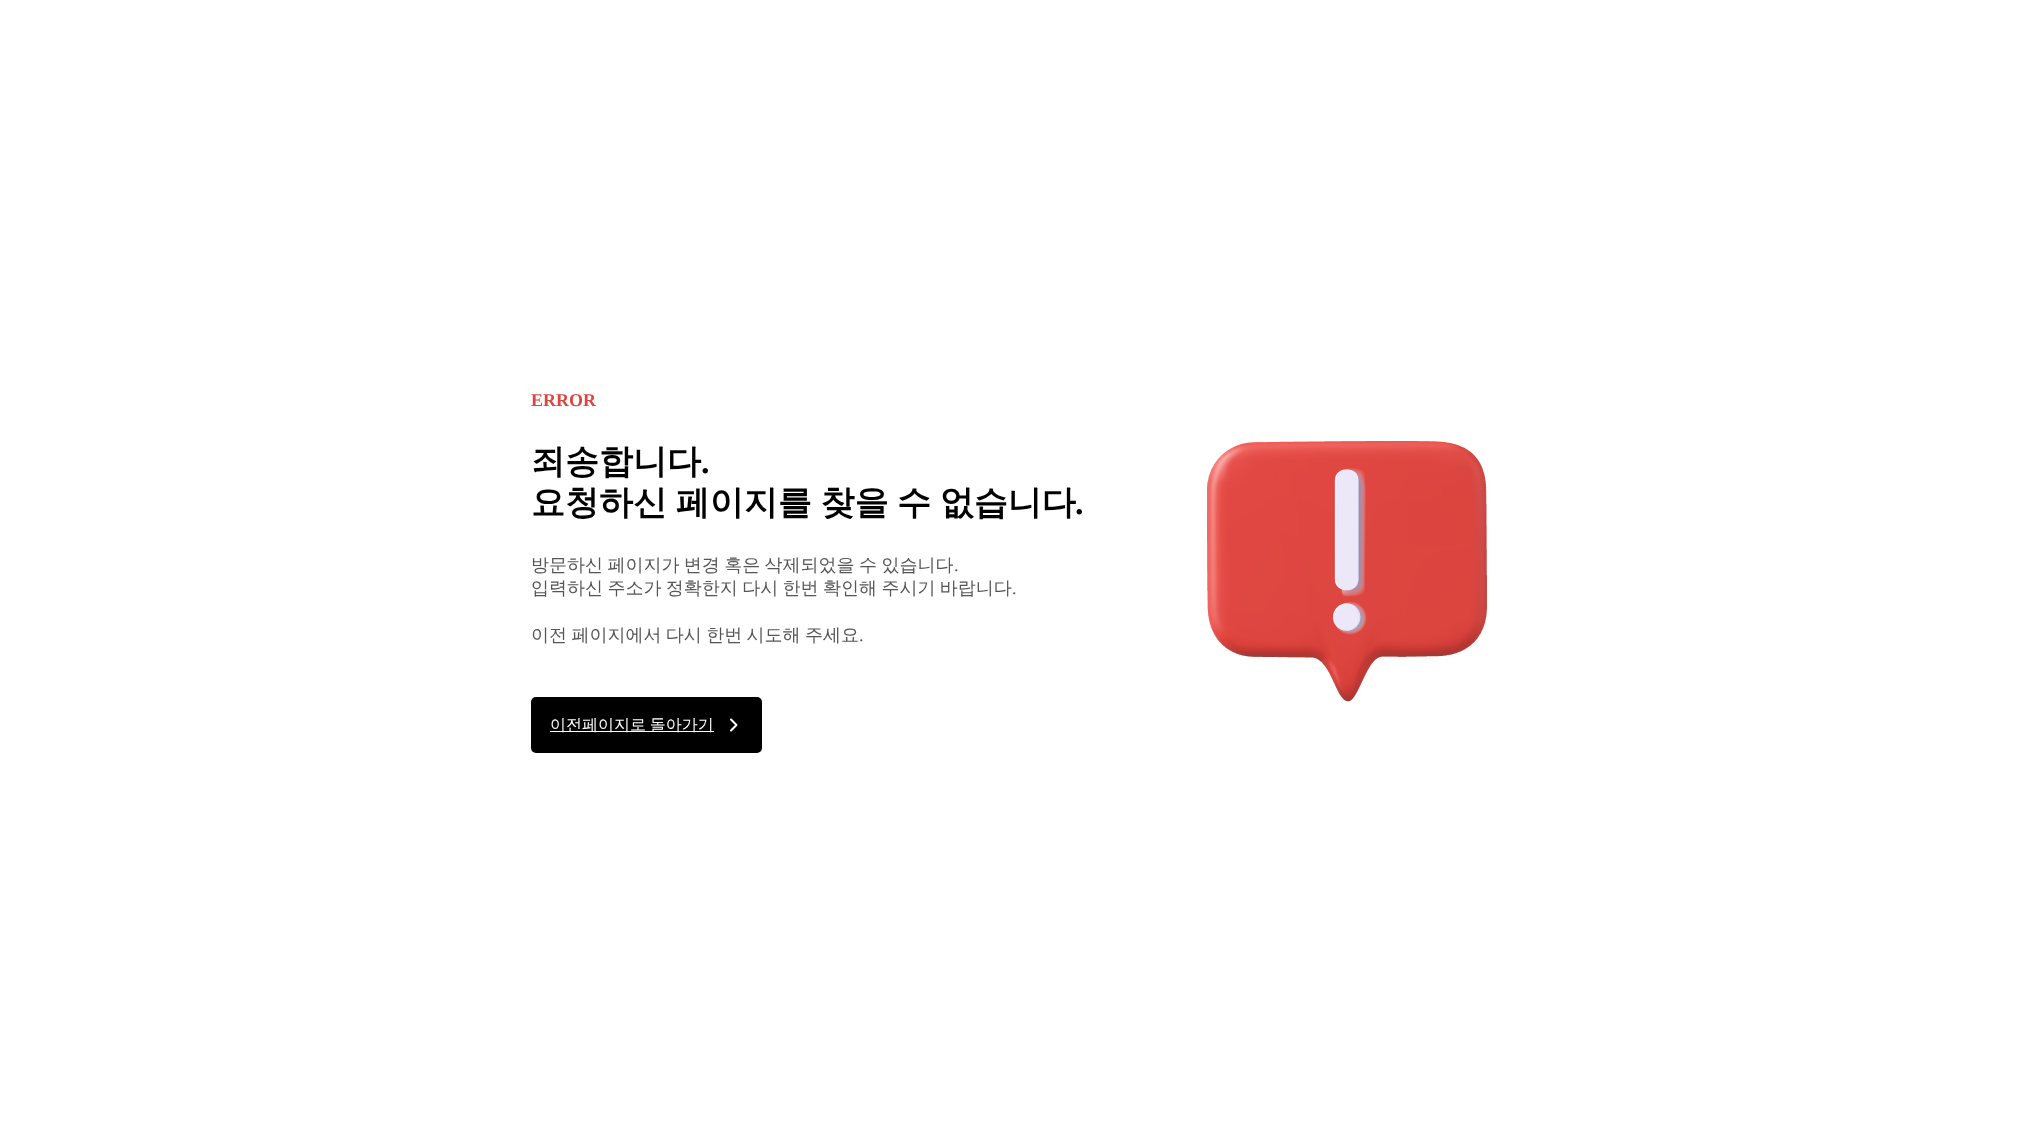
<!DOCTYPE html>
<meta charset="utf-8">
<style>body { margin: 0 } canvas { display: block }</style>
<canvas id="canvas" width="2018" height="1126"></canvas>
<img id="img1" src="img_01.png" hidden>
<script>
window.onload = function () {
	const canvas = document.getElementById("canvas");
	const ctx = canvas.getContext("2d");
	ctx.miterLimit = 4;
	ctx.fontKerning = "normal";
	function txt(s, x, y) {
		ctx.fillText(s, x, y);
	}
	function fill(x, y, w, h) {
		ctx.fillRect(x, y, w, h);
	}
	function round(x, y, w, h, r) {
		ctx.beginPath();
		ctx.roundRect(x, y, w, h, r);
		ctx.fill();
	}
	function img(id, x, y, w, h) {
		ctx.drawImage(document.getElementById(id), x, y, w, h);
	}

	ctx.fillStyle = "#FFFFFF";
	fill(0, 0, 2018, 1126);
	ctx.fillStyle = "#000000";
	round(531, 697, 231, 56, 5);
	ctx.fillStyle = "#FFFFFF";
	fill(550, 731, 164, 1);
	ctx.beginPath();
	ctx.moveTo(731, 719.5);
	ctx.lineTo(736.5, 725);
	ctx.lineTo(731, 730.5);
	ctx.strokeStyle = "#FFFFFF";
	ctx.lineWidth = 2;
	ctx.lineCap = "round";
	ctx.lineJoin = "round";
	ctx.stroke();
	img("img1", 1207, 441, 280, 261);
	ctx.font = "bold 18px Liberation Serif";
	ctx.fillStyle = "#DD4640";
	txt("ERROR", 531, 406);
	ctx.font = "bold 34px WenQuanYi Zen Hei";
	ctx.fillStyle = "#000000";
	txt("죄송합니다", 531, 473);
	ctx.font = "bold 34px Liberation Serif";
	txt(".", 701, 473);
	ctx.wordSpacing = "-1.5px";
	ctx.font = "bold 34px WenQuanYi Zen Hei";
	txt("요청하신 페이지를 찾을 수 없습니다", 531, 514);
	ctx.wordSpacing = "0px";
	ctx.font = "bold 34px Liberation Serif";
	txt(".", 1075, 514);
	ctx.wordSpacing = "-1px";
	ctx.font = "500 18px WenQuanYi Zen Hei";
	ctx.fillStyle = "#555555";
	txt("방문하신 페이지가 변경 혹은 삭제되었을 수 있습니다", 531, 571);
	ctx.wordSpacing = "0px";
	ctx.font = "18px Liberation Serif";
	txt(".", 954, 571);
	ctx.wordSpacing = "-1px";
	ctx.font = "500 18px WenQuanYi Zen Hei";
	txt("입력하신 주소가 정확한지 다시 한번 확인해 주시기 바랍니다", 531, 594);
	ctx.wordSpacing = "0px";
	ctx.font = "18px Liberation Serif";
	txt(".", 1012, 594);
	ctx.wordSpacing = "-1px";
	ctx.font = "500 18px WenQuanYi Zen Hei";
	txt("이전 페이지에서 다시 한번 시도해 주세요", 531, 641);
	ctx.wordSpacing = "0px";
	ctx.font = "18px Liberation Serif";
	txt(".", 859, 641);
	ctx.wordSpacing = "-1px";
	ctx.font = "500 16px WenQuanYi Zen Hei";
	ctx.fillStyle = "#FFFFFF";
	txt("이전페이지로 돌아가기", 550, 730);
};
</script>
